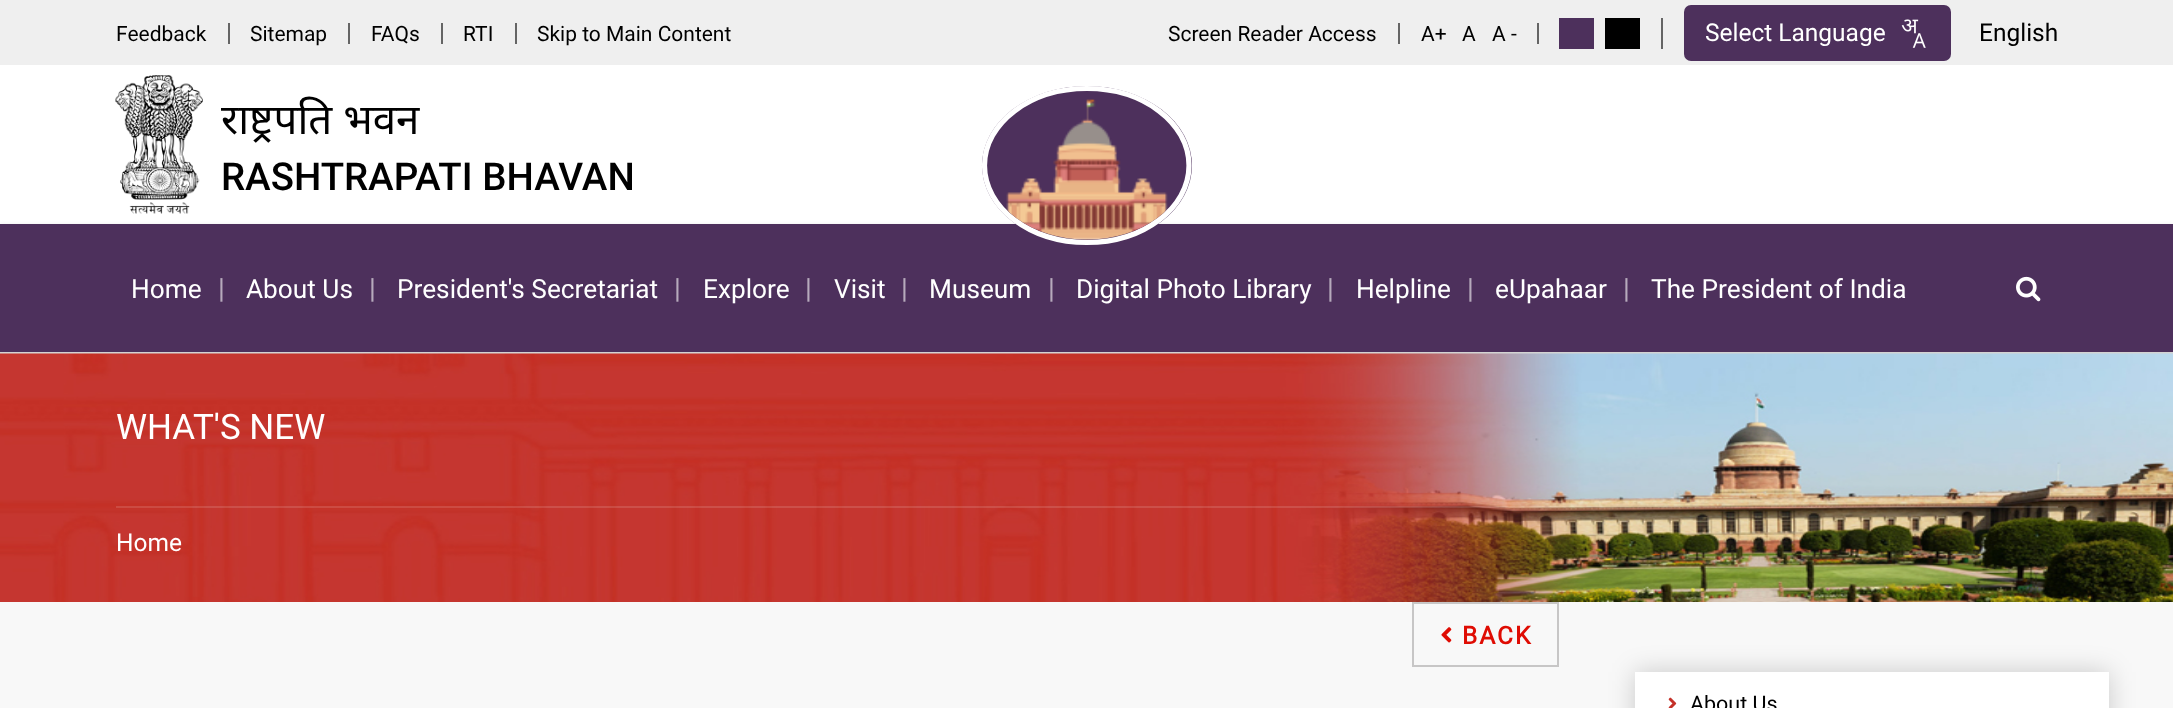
<!DOCTYPE html>
<meta charset="utf-8">
<style>body { margin: 0 } canvas { display: block }</style>
<canvas id="canvas" width="2173" height="708"></canvas>
<img id="img1" src="img_01.png" hidden>
<img id="img2" src="img_02.png" hidden>
<img id="img3" src="img_03.png" hidden>
<img id="img4" src="img_04.png" hidden>
<img id="img5" src="img_05.png" hidden>
<img id="img6" src="img_06.png" hidden>
<img id="img7" src="img_07.png" hidden>
<script>
window.onload = function () {
	const canvas = document.getElementById("canvas");
	const ctx = canvas.getContext("2d");
	ctx.miterLimit = 4;
	ctx.fontKerning = "normal";
	function txt(s, x, y) {
		ctx.fillText(s, x, y);
	}
	function fill(x, y, w, h) {
		ctx.fillRect(x, y, w, h);
	}
	function round(x, y, w, h, r) {
		ctx.beginPath();
		ctx.roundRect(x, y, w, h, r);
		ctx.fill();
	}
	function img(id, x, y, w, h) {
		ctx.drawImage(document.getElementById(id), x, y, w, h);
	}

	ctx.fillStyle = "#F8F8F8";
	fill(0, 0, 2173, 708);
	ctx.fillStyle = "#EFEFEF";
	fill(0, 0, 2173, 65);
	ctx.fillStyle = "#656565";
	fill(228, 23, 2, 21);
	fill(348, 23, 2, 21);
	fill(441, 23, 2, 21);
	fill(515, 23, 2, 21);
	fill(1398, 23, 2, 21);
	fill(1537, 23, 2, 21);
	fill(1661, 18, 2, 31);
	ctx.fillStyle = "#4D305C";
	fill(1559, 18, 35, 31);
	ctx.fillStyle = "#000000";
	fill(1605, 18, 35, 31);
	ctx.fillStyle = "#4D305C";
	round(1684, 5, 267, 56, 7);
	img("img1", 1901, 19, 25, 29);
	ctx.fillStyle = "#FFFFFF";
	fill(0, 65, 2173, 159);
	img("img2", 115, 75, 88, 139);
	ctx.fillStyle = "#D3D3D3";
	ctx.filter = "blur(2.5px)";
	ctx.beginPath();
	ctx.rect(0, 226, 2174, 129);
	ctx.fill();
	ctx.filter = "none";
	ctx.fillStyle = "#4D305C";
	fill(0, 224, 2173, 128);
	ctx.beginPath();
	ctx.ellipse(1087, 165.5, 105, 79.5, 0, 0, Math.PI * 2);
	ctx.fill();
	ctx.beginPath();
	ctx.moveTo(1087, 88.5);
	ctx.bezierCurveTo(1143.5, 88.5, 1189, 123, 1189, 165.5);
	ctx.bezierCurveTo(1189, 208, 1143.5, 242.5, 1087, 242.5);
	ctx.bezierCurveTo(1030, 242.5, 984.5, 208, 984.5, 165.5);
	ctx.bezierCurveTo(984.5, 123, 1030, 88.5, 1087, 88.5);
	ctx.closePath();
	ctx.strokeStyle = "#FFFFFF";
	ctx.lineWidth = 5.2;
	ctx.stroke();
	img("img3", 1006, 99, 162, 141);
	ctx.fillStyle = "#D3D3D3";
	fill(0, 352, 2173, 2);
	img("img4", 2016, 276, 25, 26);
	img("img5", 0, 353, 2173, 249);
	ctx.fillStyle = "rgba(255, 255, 255, 0.13)";
	fill(116, 506, 1942, 2);
	ctx.strokeStyle = "#C7C6C6";
	ctx.lineWidth = 2;
	ctx.strokeRect(1413, 603, 145, 63);
	img("img6", 1441, 627, 11, 16);
	ctx.fillStyle = "rgba(0, 0, 0, 0.19)";
	ctx.filter = "blur(13px)";
	ctx.beginPath();
	ctx.rect(1635, 672, 474, 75);
	ctx.fill();
	ctx.filter = "none";
	ctx.fillStyle = "#FFFFFF";
	fill(1635, 672, 474, 36);
	img("img7", 1668, 697, 9, 11);
	ctx.font = "21px Roboto";
	ctx.fillStyle = "#000000";
	txt("Feedback", 116, 41);
	txt("Sitemap", 250, 41);
	txt("FAQs", 371, 41);
	txt("RTI", 463, 41);
	txt("Skip to Main Content", 537, 41);
	txt("Screen Reader Access", 1168, 41);
	txt("A+", 1421, 41);
	txt("A", 1462, 41);
	txt("A -", 1492, 41);
	ctx.font = "24.5px Roboto";
	ctx.fillStyle = "#FFFFFF";
	txt("Select Language", 1705, 41);
	ctx.fillStyle = "#000000";
	txt("English", 1979, 41);
	ctx.font = "42px Noto Sans";
	txt("राष्ट्रपति भवन", 221, 134);
	ctx.font = "500 38.5px Roboto";
	txt("RASHTRAPATI BHAVAN", 221, 190);
	ctx.font = "26.25px Roboto";
	ctx.fillStyle = "#FFFFFF";
	txt("Home", 131, 298);
	ctx.font = "28px Roboto";
	ctx.fillStyle = "#B6AABC";
	txt("|", 218, 298);
	ctx.font = "26.25px Roboto";
	ctx.fillStyle = "#FFFFFF";
	txt("About Us", 246, 298);
	ctx.font = "28px Roboto";
	ctx.fillStyle = "#B6AABC";
	txt("|", 369, 298);
	ctx.font = "26.25px Roboto";
	ctx.fillStyle = "#FFFFFF";
	txt("President's Secretariat", 397, 298);
	ctx.font = "28px Roboto";
	ctx.fillStyle = "#B6AABC";
	txt("|", 674, 298);
	ctx.font = "26.25px Roboto";
	ctx.fillStyle = "#FFFFFF";
	txt("Explore", 703, 298);
	ctx.font = "28px Roboto";
	ctx.fillStyle = "#B6AABC";
	txt("|", 805, 298);
	ctx.font = "26.25px Roboto";
	ctx.fillStyle = "#FFFFFF";
	txt("Visit", 834, 298);
	ctx.font = "28px Roboto";
	ctx.fillStyle = "#B6AABC";
	txt("|", 901, 298);
	ctx.font = "26.25px Roboto";
	ctx.fillStyle = "#FFFFFF";
	txt("Museum", 929, 298);
	ctx.font = "28px Roboto";
	ctx.fillStyle = "#B6AABC";
	txt("|", 1048, 298);
	ctx.font = "26.25px Roboto";
	ctx.fillStyle = "#FFFFFF";
	txt("Digital Photo Library", 1076, 298);
	ctx.font = "28px Roboto";
	ctx.fillStyle = "#B6AABC";
	txt("|", 1327, 298);
	ctx.font = "26.25px Roboto";
	ctx.fillStyle = "#FFFFFF";
	txt("Helpline", 1356, 298);
	ctx.font = "28px Roboto";
	ctx.fillStyle = "#B6AABC";
	txt("|", 1467, 298);
	ctx.font = "26.25px Roboto";
	ctx.fillStyle = "#FFFFFF";
	txt("eUpahaar", 1495, 298);
	ctx.font = "28px Roboto";
	ctx.fillStyle = "#B6AABC";
	txt("|", 1623, 298);
	ctx.font = "26.25px Roboto";
	ctx.fillStyle = "#FFFFFF";
	txt("The President of India", 1651, 298);
	ctx.font = "35px Roboto";
	txt("WHAT'S NEW", 116, 439);
	ctx.font = "24.5px Roboto";
	txt("Home", 116, 551);
	ctx.letterSpacing = "2px";
	ctx.font = "bold 24.5px Roboto";
	ctx.fillStyle = "#DF0C03";
	txt("BACK", 1462, 644);
	ctx.letterSpacing = "0px";
	ctx.font = "21.5px Roboto";
	ctx.fillStyle = "#000000";
	txt("About Us", 1690, 711);
};
</script>
